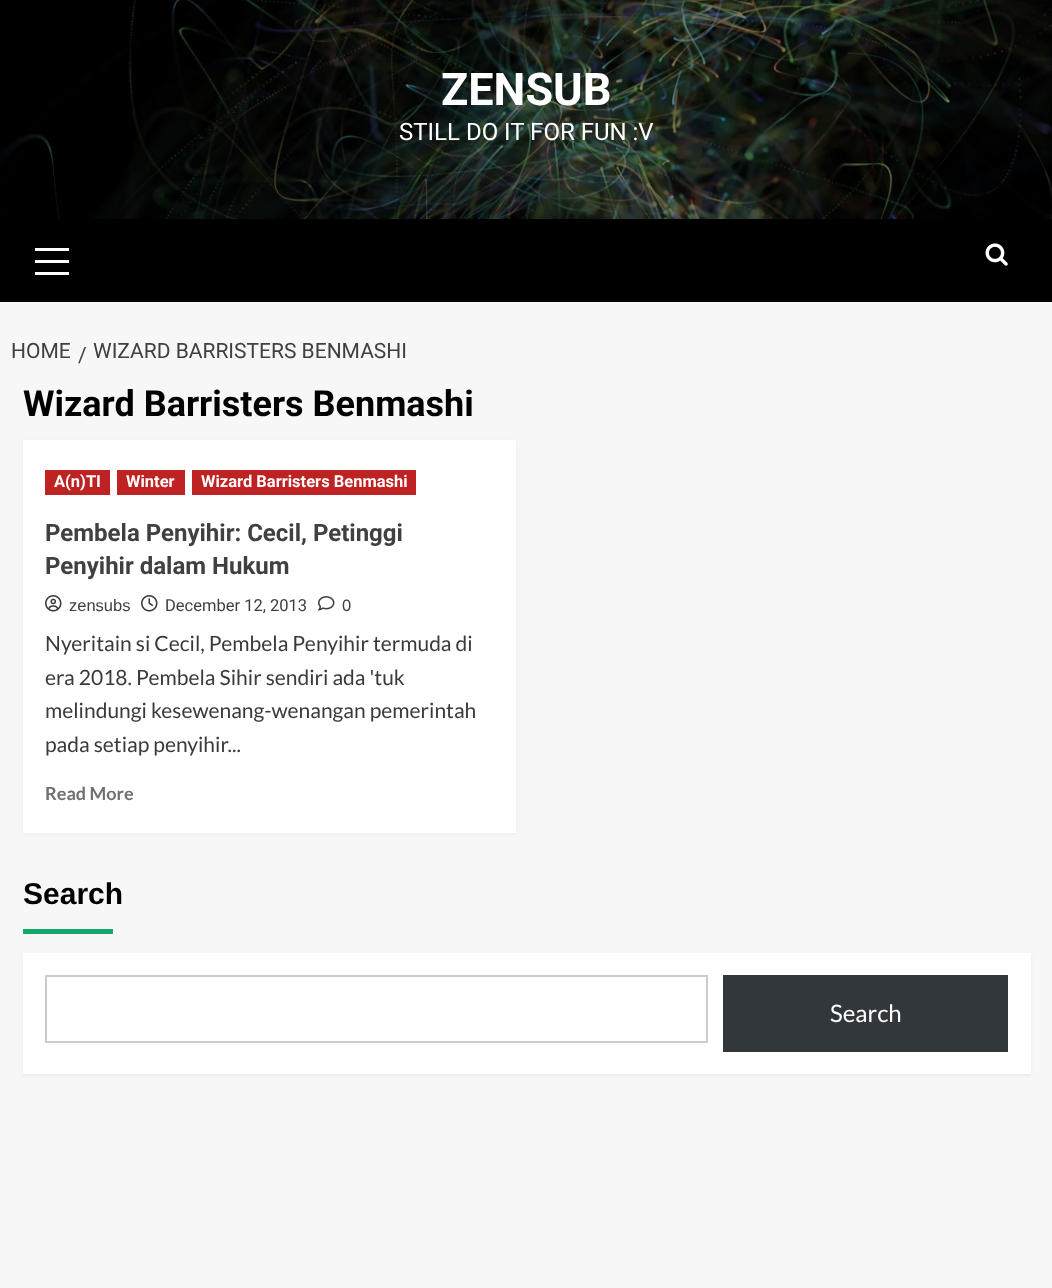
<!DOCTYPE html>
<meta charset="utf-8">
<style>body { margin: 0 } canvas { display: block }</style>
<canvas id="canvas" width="1052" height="1288"></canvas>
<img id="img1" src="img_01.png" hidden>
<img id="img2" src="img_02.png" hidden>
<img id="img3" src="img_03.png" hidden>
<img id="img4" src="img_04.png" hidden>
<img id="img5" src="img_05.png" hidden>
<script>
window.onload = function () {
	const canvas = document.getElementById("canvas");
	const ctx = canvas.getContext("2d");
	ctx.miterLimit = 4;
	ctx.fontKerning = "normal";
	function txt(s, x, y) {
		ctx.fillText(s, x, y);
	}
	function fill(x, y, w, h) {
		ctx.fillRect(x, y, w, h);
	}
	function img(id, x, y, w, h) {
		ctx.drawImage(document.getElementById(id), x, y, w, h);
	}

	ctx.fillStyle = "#F7F7F7";
	fill(0, 0, 1052, 1288);
	img("img1", 0, 0, 1052, 219);
	ctx.fillStyle = "#000000";
	fill(0, 219, 1052, 83);
	ctx.fillStyle = "#FFFFFF";
	fill(35, 260, 34, 3);
	fill(35, 248, 34, 3);
	fill(35, 272, 34, 3);
	img("img2", 985, 243, 23, 23);
	ctx.fillStyle = "rgba(0, 0, 0, 0.05)";
	ctx.filter = "blur(1.5px)";
	ctx.beginPath();
	ctx.rect(23, 441, 493, 393);
	ctx.fill();
	ctx.filter = "none";
	ctx.fillStyle = "#FFFFFF";
	fill(23, 440, 493, 393);
	ctx.fillStyle = "#BE2222";
	fill(45, 470, 65, 25);
	fill(117, 470, 68, 25);
	fill(192, 470, 224, 25);
	img("img3", 45, 595, 17, 17);
	img("img4", 141, 595, 17, 17);
	img("img5", 318, 596, 17, 15);
	ctx.fillStyle = "#12A86B";
	fill(23, 929, 90, 5);
	ctx.fillStyle = "rgba(0, 0, 0, 0.05)";
	ctx.filter = "blur(1.5px)";
	ctx.beginPath();
	ctx.rect(23, 954, 1008, 122);
	ctx.fill();
	ctx.filter = "none";
	ctx.fillStyle = "#FFFFFF";
	fill(23, 953, 1008, 121);
	ctx.strokeStyle = "#CCCCCC";
	ctx.lineWidth = 2;
	ctx.strokeRect(46, 976, 661, 66);
	ctx.fillStyle = "#32373C";
	fill(723, 975, 285, 77);
	ctx.font = "bold 45px Roboto";
	ctx.fillStyle = "#FFFFFF";
	txt("ZENSUB", 441, 105);
	ctx.font = "24px Roboto";
	txt("STILL DO IT FOR FUN :V", 399, 140);
	ctx.font = "21px Roboto";
	ctx.fillStyle = "#404040";
	txt("HOME", 11, 358);
	txt("/", 78, 362);
	txt("WIZARD BARRISTERS BENMASHI", 93, 358);
	ctx.font = "bold 36px Roboto";
	ctx.fillStyle = "#000000";
	txt("Wizard Barristers Benmashi", 23, 416);
	ctx.font = "bold 16.5px Roboto";
	ctx.fillStyle = "#FFFFFF";
	txt("A(n)TI", 54, 487);
	txt("Winter", 126, 487);
	txt("Wizard Barristers Benmashi", 201, 487);
	ctx.font = "bold 24px Roboto";
	ctx.fillStyle = "#404040";
	txt("Pembela Penyihir: Cecil, Petinggi", 45, 541);
	txt("Penyihir dalam Hukum", 45, 574);
	ctx.font = "16.5px Liberation Sans";
	txt("zensubs", 69, 611);
	ctx.font = "16.5px Roboto";
	txt("December 12, 2013", 165, 611);
	ctx.font = "16.5px Liberation Sans";
	txt("0", 342, 611);
	ctx.font = "21px Lato";
	ctx.fillStyle = "#3A3A3A";
	txt("Nyeritain si Cecil, Pembela Penyihir termuda di", 45, 651);
	txt("era 2018. Pembela Sihir sendiri ada 'tuk", 45, 685);
	txt("melindungi kesewenang-wenangan pemerintah", 45, 718);
	txt("pada setiap penyihir...", 45, 752);
	ctx.font = "bold 18px Lato";
	ctx.fillStyle = "#707070";
	txt("Read More", 45, 800);
	ctx.font = "bold 30px Liberation Sans";
	ctx.fillStyle = "#000000";
	txt("Search", 23, 904);
	ctx.font = "24px Lato";
	ctx.fillStyle = "#FFFFFF";
	txt("Search", 830, 1022);
};
</script>
